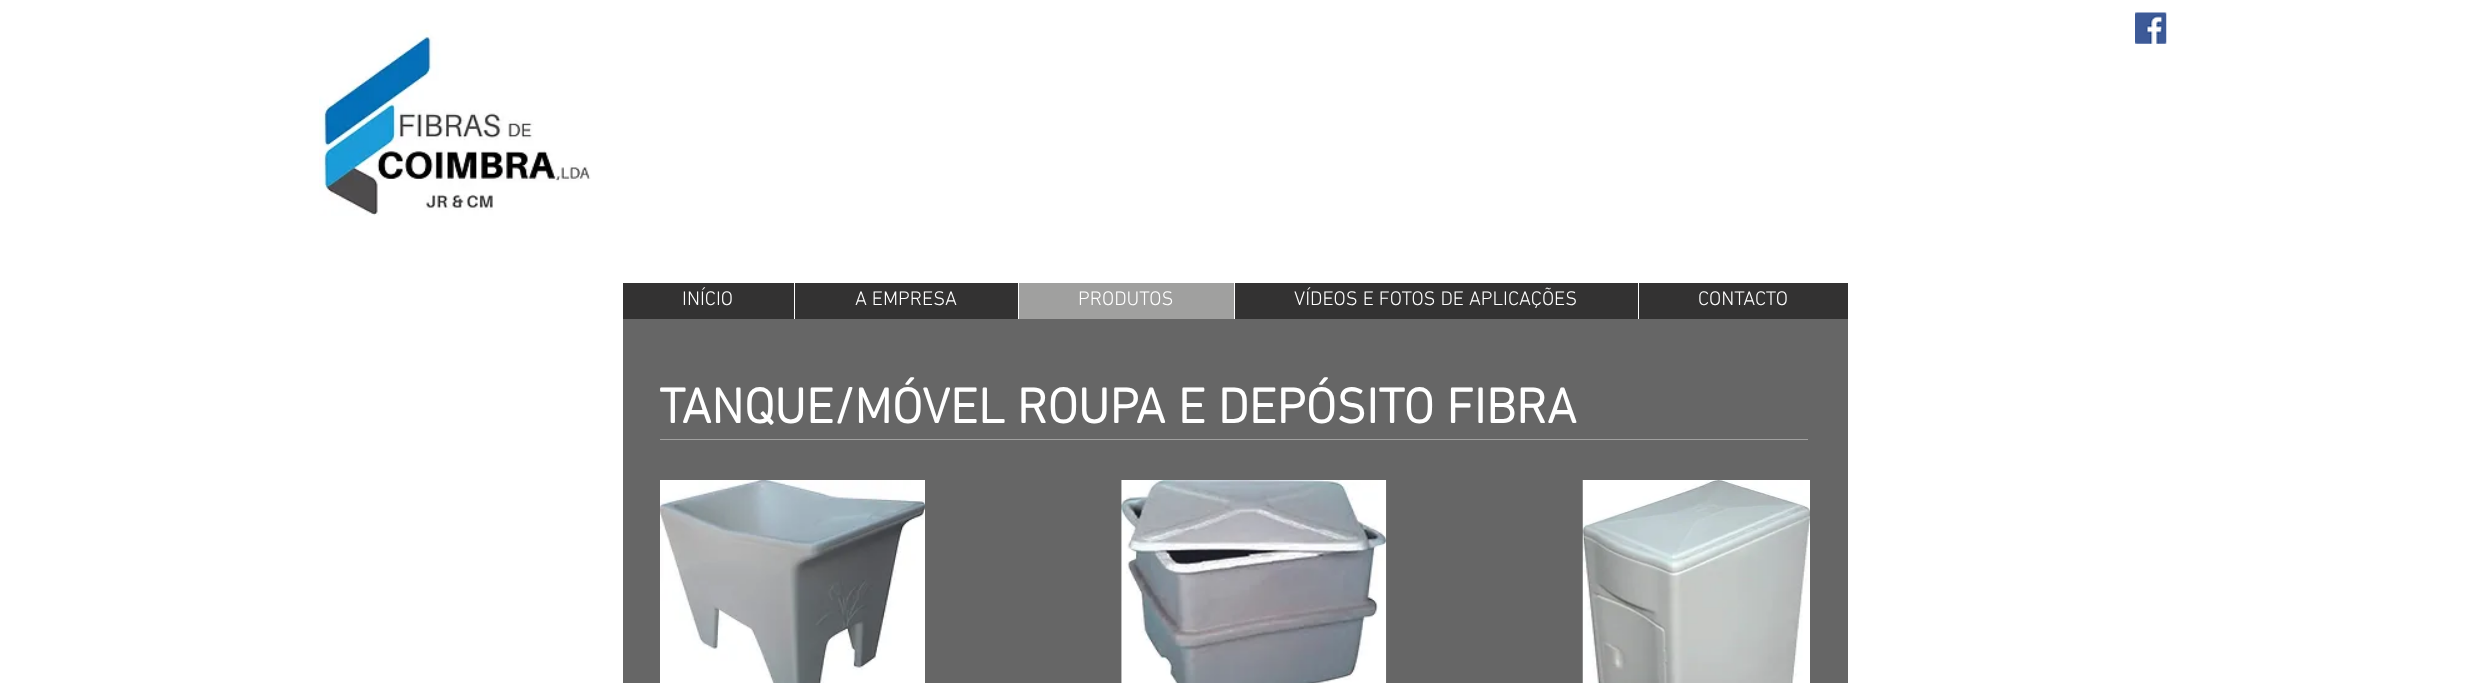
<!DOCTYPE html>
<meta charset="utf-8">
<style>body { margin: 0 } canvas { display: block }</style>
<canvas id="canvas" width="2468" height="683"></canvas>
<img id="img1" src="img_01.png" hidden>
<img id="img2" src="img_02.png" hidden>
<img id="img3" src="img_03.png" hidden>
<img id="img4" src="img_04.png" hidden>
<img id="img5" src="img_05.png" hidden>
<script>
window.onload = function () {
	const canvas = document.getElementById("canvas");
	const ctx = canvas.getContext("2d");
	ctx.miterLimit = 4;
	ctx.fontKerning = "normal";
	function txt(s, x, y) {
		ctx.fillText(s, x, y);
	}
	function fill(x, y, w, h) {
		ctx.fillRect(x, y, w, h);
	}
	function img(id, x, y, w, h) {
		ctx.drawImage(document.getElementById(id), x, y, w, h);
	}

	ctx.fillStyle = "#FFFFFF";
	fill(0, 0, 2468, 683);
	img("img1", 319, 29, 272, 187);
	img("img2", 2135, 12, 32, 32);
	ctx.fillStyle = "#333232";
	fill(623, 283, 1225, 36);
	ctx.fillStyle = "#FFFFFF";
	fill(794, 283, 1, 36);
	ctx.fillStyle = "#A0A09F";
	fill(1019, 283, 215, 36);
	ctx.fillStyle = "#FFFFFF";
	fill(1018, 283, 1, 36);
	fill(1234, 283, 1, 36);
	fill(1638, 283, 1, 36);
	ctx.fillStyle = "#666666";
	fill(623, 319, 1225, 364);
	ctx.fillStyle = "#A0A09F";
	fill(660, 439, 1148, 1);
	img("img3", 660, 480, 265, 203);
	img("img4", 1121, 480, 266, 203);
	img("img5", 1582, 480, 228, 203);
	ctx.font = "300 20px 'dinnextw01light'";
	ctx.fillStyle = "#FFFFFF";
	txt("INÍCIO", 682, 305);
	txt("A EMPRESA", 855, 305);
	txt("PRODUTOS", 1078, 305);
	txt("VÍDEOS E FOTOS DE APLICAÇÕES", 1294, 305);
	txt("CONTACTO", 1698, 305);
	ctx.font = "bold 50px 'dinnextw01light'";
	txt("TANQUE/MÓVEL ROUPA E DEPÓSITO FIBRA", 659, 423);
};
</script>
